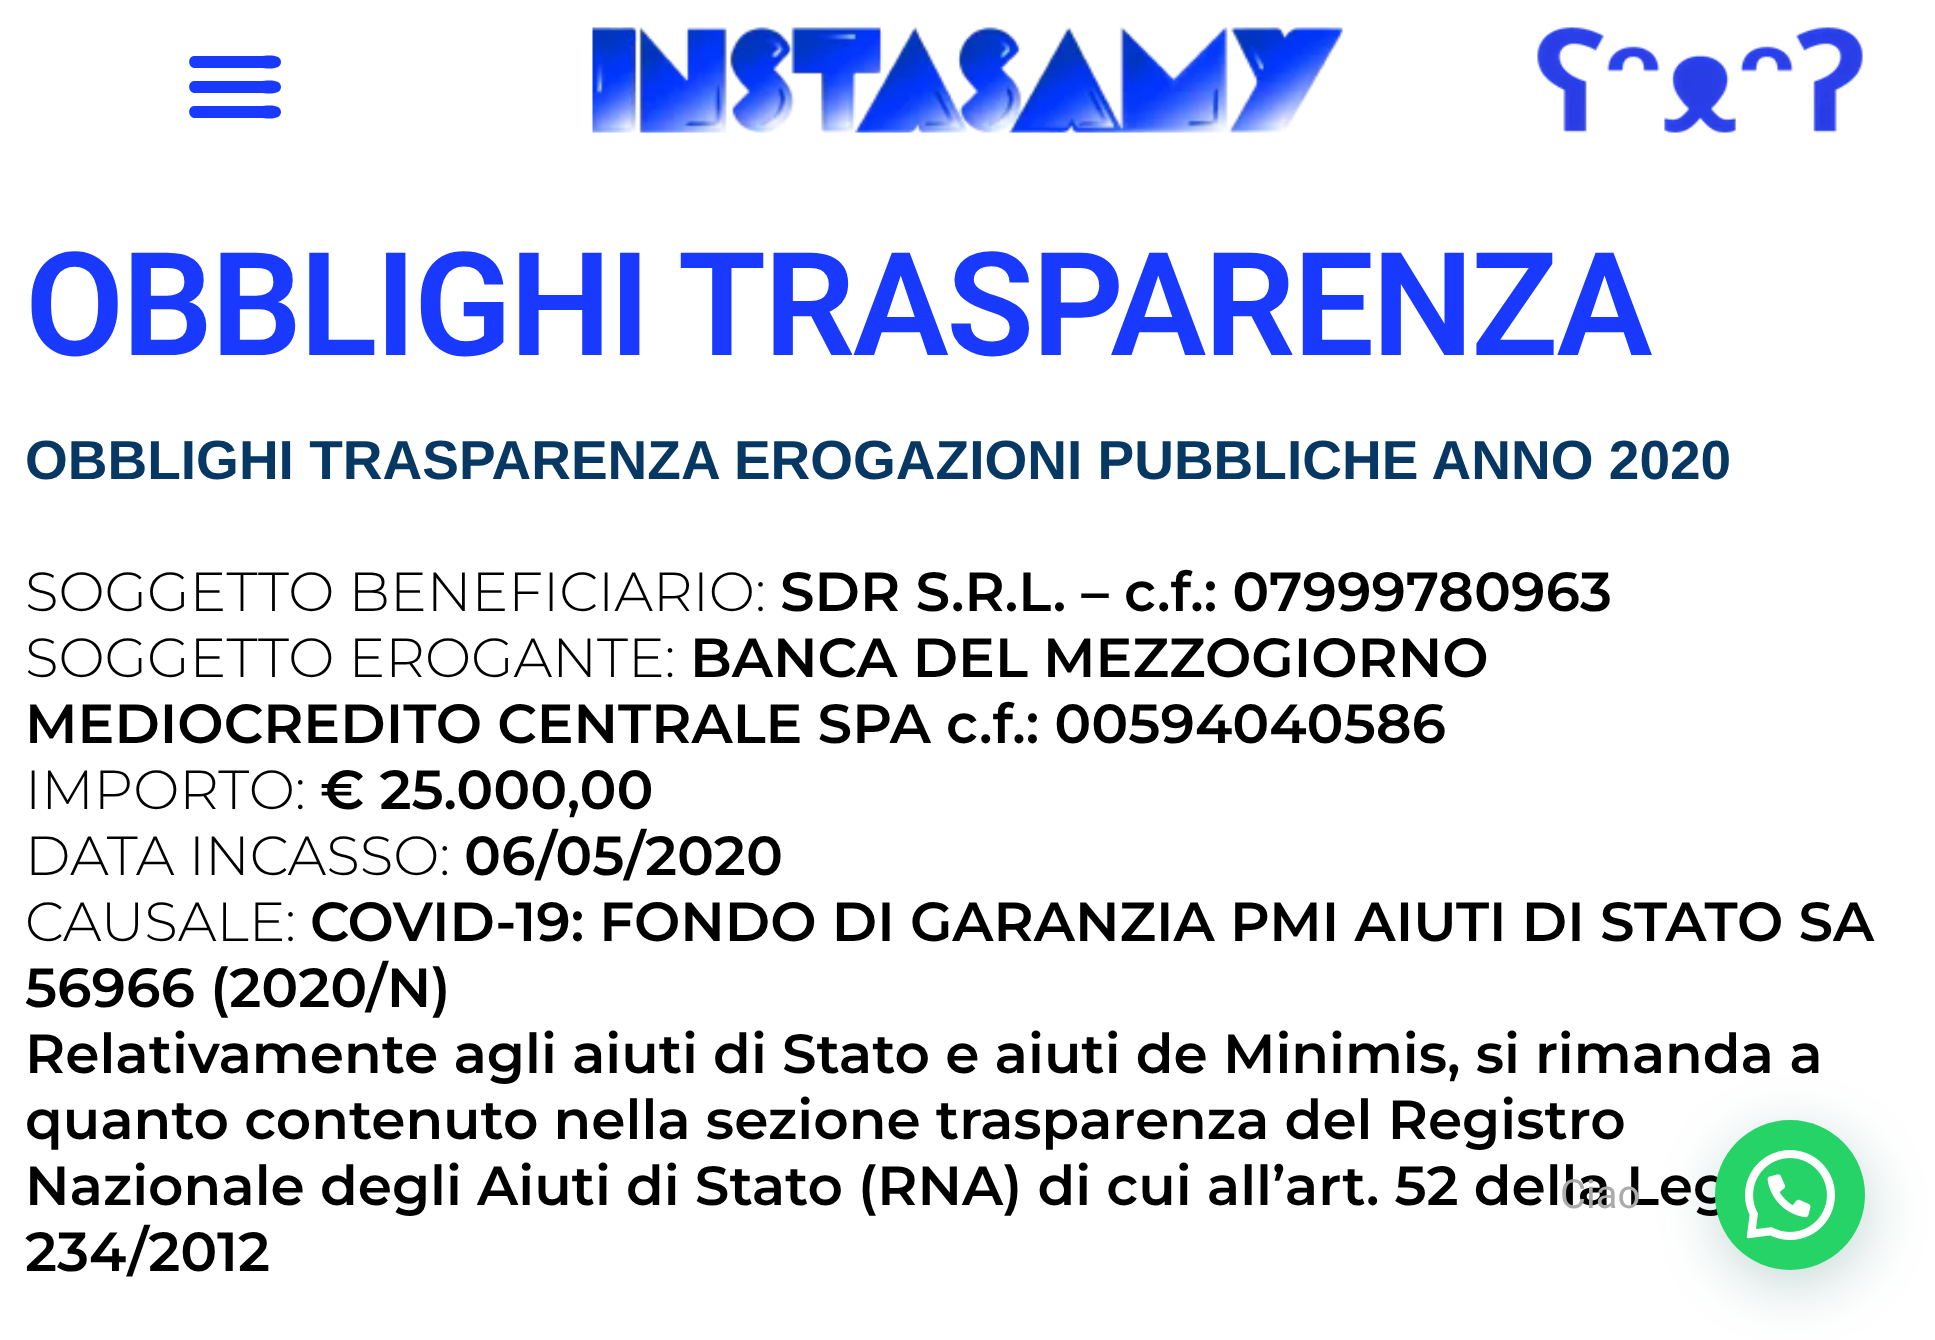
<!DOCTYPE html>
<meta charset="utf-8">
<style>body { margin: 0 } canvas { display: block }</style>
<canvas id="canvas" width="1935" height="1340"></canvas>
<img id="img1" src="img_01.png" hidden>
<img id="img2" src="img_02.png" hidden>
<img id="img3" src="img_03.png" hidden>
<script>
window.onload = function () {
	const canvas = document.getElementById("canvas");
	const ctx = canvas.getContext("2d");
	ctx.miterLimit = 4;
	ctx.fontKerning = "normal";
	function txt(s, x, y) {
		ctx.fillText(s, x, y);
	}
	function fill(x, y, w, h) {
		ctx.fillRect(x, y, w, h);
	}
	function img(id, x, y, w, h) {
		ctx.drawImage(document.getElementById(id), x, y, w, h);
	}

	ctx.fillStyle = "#FFFFFF";
	fill(0, 0, 1935, 1340);
	ctx.fillStyle = "#1939FF";
	ctx.beginPath();
	ctx.moveTo(195, 68);
	ctx.lineTo(261, 68);
	ctx.bezierCurveTo(265, 68, 281, 71, 281, 62);
	ctx.bezierCurveTo(281, 53, 265, 56, 261, 56);
	ctx.lineTo(194, 56);
	ctx.bezierCurveTo(187, 57, 188, 68, 195, 68);
	ctx.closePath();
	ctx.moveTo(195, 93);
	ctx.lineTo(261, 93);
	ctx.bezierCurveTo(265, 93, 281, 96, 281, 87);
	ctx.bezierCurveTo(281, 78, 265, 81, 261, 81);
	ctx.lineTo(194, 81);
	ctx.bezierCurveTo(187, 82, 188, 93, 195, 93);
	ctx.closePath();
	ctx.moveTo(195, 118);
	ctx.lineTo(261, 118);
	ctx.bezierCurveTo(265, 118, 281, 121, 281, 112);
	ctx.bezierCurveTo(281, 103, 265, 106, 261, 106);
	ctx.lineTo(194, 106);
	ctx.bezierCurveTo(187, 107, 188, 118, 195, 118);
	ctx.closePath();
	ctx.fill();
	img("img1", 592, 27, 751, 106);
	img("img2", 1537, 27, 326, 106);
	ctx.fillStyle = "rgba(7, 94, 84, 0.24)";
	ctx.filter = "blur(30px)";
	ctx.beginPath();
	ctx.roundRect(1718, 1135, 150, 150, 75);
	ctx.fill();
	ctx.filter = "none";
	ctx.letterSpacing = "-2.5px";
	ctx.font = "600 144px Roboto";
	ctx.fillStyle = "#1939FF";
	txt("OBBLIGHI TRASPARENZA", 25, 355);
	ctx.letterSpacing = "0px";
	ctx.font = "bold 55px Liberation Sans";
	ctx.fillStyle = "#073763";
	txt("OBBLIGHI TRASPARENZA EROGAZIONI PUBBLICHE ANNO 2020", 25, 479);
	ctx.font = "300 55px Montserrat";
	ctx.fillStyle = "#000000";
	txt("SOGGETTO BENEFICIARIO:", 25, 611);
	ctx.font = "600 55px Montserrat";
	txt("SDR S.R.L. – c.f.: 07999780963", 780, 611);
	ctx.font = "300 55px Montserrat";
	txt("SOGGETTO EROGANTE:", 25, 677);
	ctx.font = "600 55px Montserrat";
	txt("BANCA DEL MEZZOGIORNO", 690, 677);
	txt("MEDIOCREDITO CENTRALE SPA c.f.: 00594040586", 25, 743);
	ctx.font = "300 55px Montserrat";
	txt("IMPORTO:", 25, 809);
	ctx.font = "600 55px Montserrat";
	txt("€ 25.000,00", 320, 809);
	ctx.font = "300 55px Montserrat";
	txt("DATA INCASSO:", 25, 875);
	ctx.font = "600 55px Montserrat";
	txt("06/05/2020", 464, 875);
	ctx.font = "300 55px Montserrat";
	txt("CAUSALE:", 25, 941);
	ctx.font = "600 55px Montserrat";
	txt("COVID-19: FONDO DI GARANZIA PMI AIUTI DI STATO SA", 310, 941);
	txt("56966 (2020/N)", 25, 1007);
	txt("Relativamente agli aiuti di Stato e aiuti de Minimis, si rimanda a", 25, 1073);
	txt("quanto contenuto nella sezione trasparenza del Registro", 25, 1139);
	txt("Nazionale degli Aiuti di Stato (RNA) di cui all’art. 52 della Leg", 25, 1205);
	txt("234/2012", 25, 1271);
	ctx.fillStyle = "#25D366";
	ctx.beginPath();
	ctx.arc(1790, 1195, 75, 0, Math.PI * 2);
	ctx.fill();
	img("img3", 1745, 1150, 90, 90);
	ctx.font = "40px Roboto";
	ctx.fillStyle = "#ABABAB";
	txt("Ciao", 1560, 1208);
};
</script>
